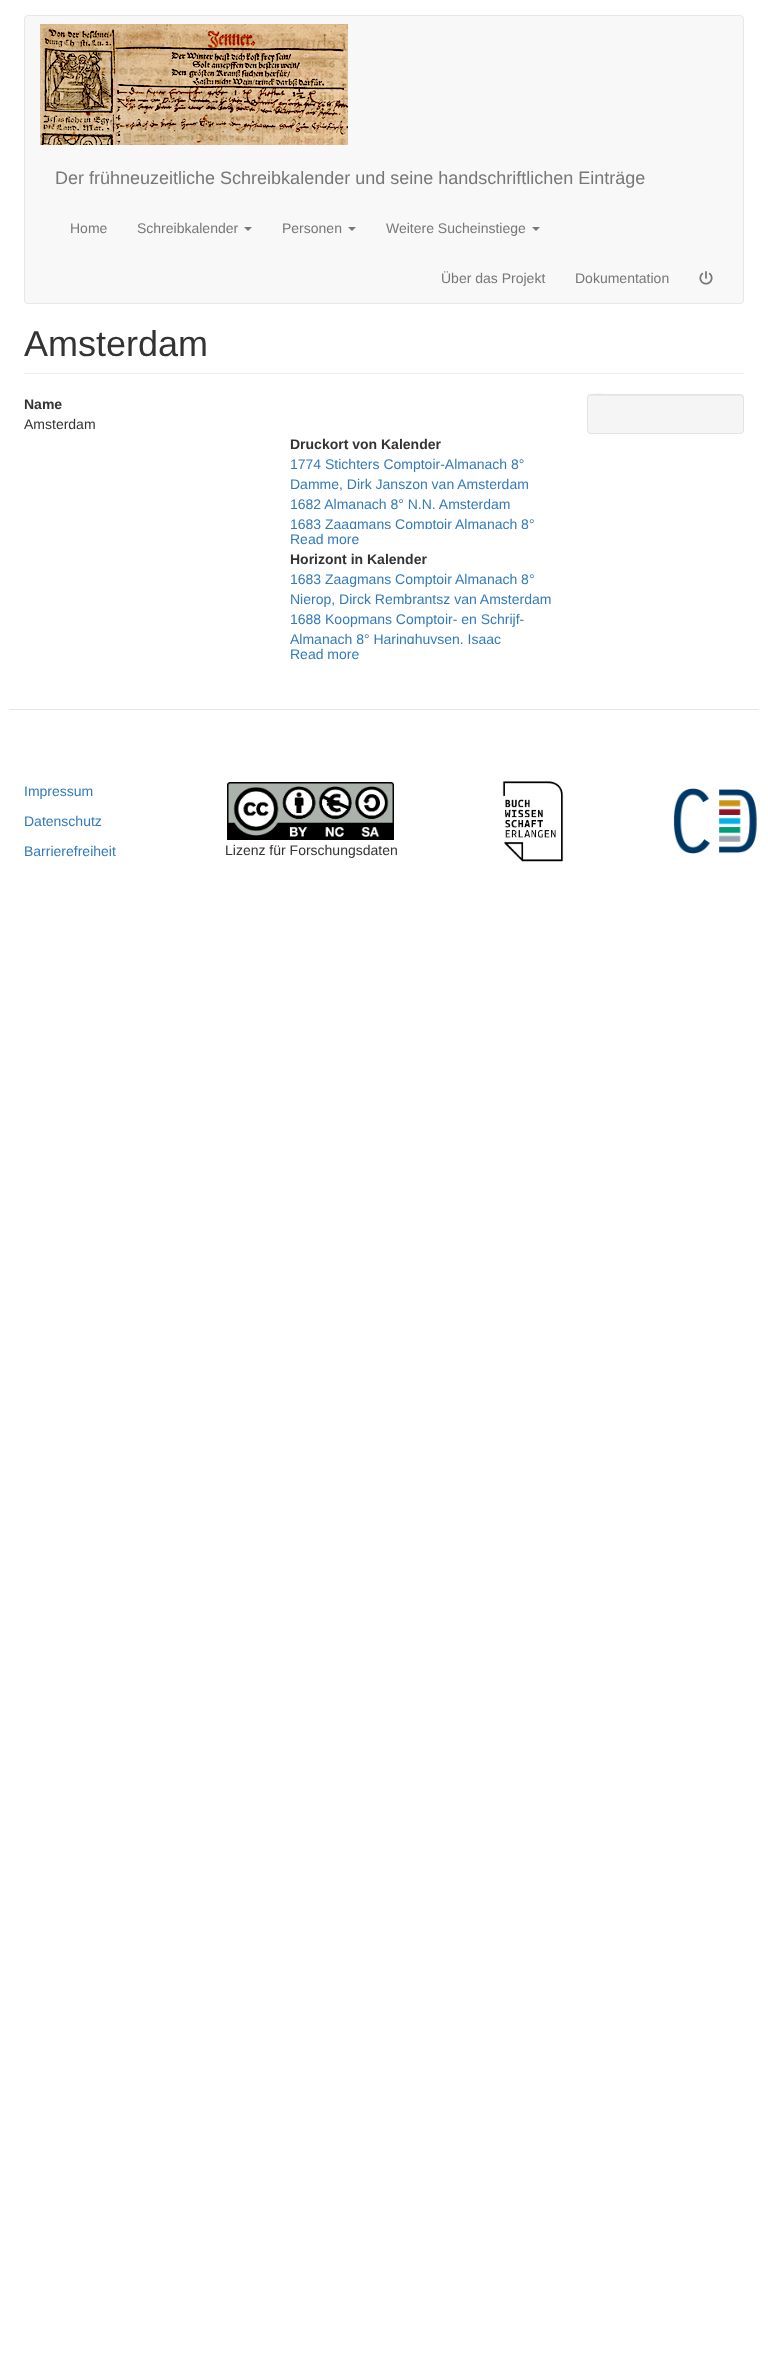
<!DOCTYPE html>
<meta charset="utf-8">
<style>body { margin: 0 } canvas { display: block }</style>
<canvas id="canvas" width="768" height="2364"></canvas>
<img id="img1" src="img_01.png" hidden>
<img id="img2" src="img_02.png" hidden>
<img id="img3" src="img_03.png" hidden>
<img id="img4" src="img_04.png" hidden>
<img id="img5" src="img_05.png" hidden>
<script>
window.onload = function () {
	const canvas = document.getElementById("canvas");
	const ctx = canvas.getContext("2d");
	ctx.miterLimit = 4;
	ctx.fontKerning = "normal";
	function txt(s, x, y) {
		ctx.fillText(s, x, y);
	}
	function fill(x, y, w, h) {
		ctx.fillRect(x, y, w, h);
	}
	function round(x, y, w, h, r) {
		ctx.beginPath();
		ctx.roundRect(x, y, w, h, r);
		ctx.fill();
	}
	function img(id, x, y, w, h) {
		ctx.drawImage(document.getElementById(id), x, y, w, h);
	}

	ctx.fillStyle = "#FFFFFF";
	fill(0, 0, 768, 2364);
	ctx.fillStyle = "#F8F8F8";
	ctx.beginPath();
	ctx.roundRect(24.5, 15.5, 719, 288, 3.5);
	ctx.fill();
	ctx.strokeStyle = "#E7E7E7";
	ctx.stroke();
	img("img1", 40, 24, 308, 121);
	ctx.fillStyle = "#777777";
	ctx.beginPath();
	ctx.moveTo(244, 227);
	ctx.lineTo(252, 227);
	ctx.lineTo(248, 231);
	ctx.closePath();
	ctx.fill();
	ctx.beginPath();
	ctx.moveTo(348, 227);
	ctx.lineTo(356, 227);
	ctx.lineTo(352, 231);
	ctx.closePath();
	ctx.fill();
	ctx.beginPath();
	ctx.moveTo(532, 227);
	ctx.lineTo(540, 227);
	ctx.lineTo(536, 231);
	ctx.closePath();
	ctx.fill();
	img("img2", 699, 271, 14, 14);
	ctx.fillStyle = "#EEEEEE";
	fill(24, 373, 720, 1);
	ctx.fillStyle = "#F5F5F5";
	round(587, 394, 157, 40, 4);
	ctx.fillStyle = "#E9E9E9";
	ctx.beginPath();
	ctx.moveTo(591, 396);
	ctx.lineTo(740, 396);
	ctx.bezierCurveTo(742, 396, 743, 397, 743, 399);
	ctx.bezierCurveTo(743, 397, 743, 396, 741, 395);
	ctx.lineTo(616, 395);
	ctx.bezierCurveTo(608, 395, 588, 390, 588, 399);
	ctx.bezierCurveTo(588, 397, 589, 396, 591, 396);
	ctx.closePath();
	ctx.fill();
	ctx.beginPath();
	ctx.roundRect(587.5, 394.5, 156, 39, 3.5);
	ctx.strokeStyle = "#E3E3E3";
	ctx.stroke();
	ctx.fillStyle = "#E5E5E5";
	fill(9, 709, 750, 1);
	img("img3", 227, 782, 167, 58);
	img("img4", 502, 781, 62, 81);
	img("img5", 673, 788, 84, 66);
	ctx.font = "18px Liberation Sans";
	ctx.fillStyle = "#777777";
	txt("Der frühneuzeitliche Schreibkalender und seine handschriftlichen Einträge", 55, 184);
	ctx.font = "14px Liberation Sans";
	txt("Home", 70, 233);
	txt("Schreibkalender", 137, 233);
	txt("Personen", 282, 233);
	txt("Weitere Sucheinstiege", 386, 233);
	txt("Über das Projekt", 441, 283);
	txt("Dokumentation", 575, 283);
	ctx.font = "36px Liberation Sans";
	ctx.fillStyle = "#333333";
	txt("Amsterdam", 24, 356);
	ctx.font = "bold 14px Liberation Sans";
	txt("Name", 24, 409);
	ctx.font = "14px Liberation Sans";
	txt("Amsterdam", 24, 429);
	ctx.font = "bold 14px Liberation Sans";
	txt("Druckort von Kalender", 290, 449);
	ctx.font = "14px Liberation Sans";
	ctx.fillStyle = "#337AB7";
	txt("1774 Stichters Comptoir-Almanach 8°", 290, 469);
	txt("Damme, Dirk Janszon van Amsterdam", 290, 489);
	txt("1682 Almanach 8° N.N. Amsterdam", 290, 509);
	ctx.save();
	ctx.beginPath();
	ctx.rect(290, 454, 267, 75);
	ctx.clip();
	txt("1683 Zaagmans Comptoir Almanach 8°", 290, 529);
	ctx.restore();
	txt("Read more", 290, 544);
	ctx.font = "bold 14px Liberation Sans";
	ctx.fillStyle = "#333333";
	txt("Horizont in Kalender", 290, 564);
	ctx.font = "14px Liberation Sans";
	ctx.fillStyle = "#337AB7";
	txt("1683 Zaagmans Comptoir Almanach 8°", 290, 584);
	txt("Nierop, Dirck Rembrantsz van Amsterdam", 290, 604);
	txt("1688 Koopmans Comptoir- en Schrijf-", 290, 624);
	ctx.save();
	ctx.beginPath();
	ctx.rect(290, 569, 267, 75);
	ctx.clip();
	txt("Almanach 8° Haringhuysen, Isaac", 290, 644);
	ctx.restore();
	txt("Read more", 290, 659);
	txt("Impressum", 24, 796);
	txt("Datenschutz", 24, 826);
	txt("Barrierefreiheit", 24, 856);
	ctx.fillStyle = "#333333";
	txt("Lizenz für Forschungsdaten", 225, 855);
};
</script>
